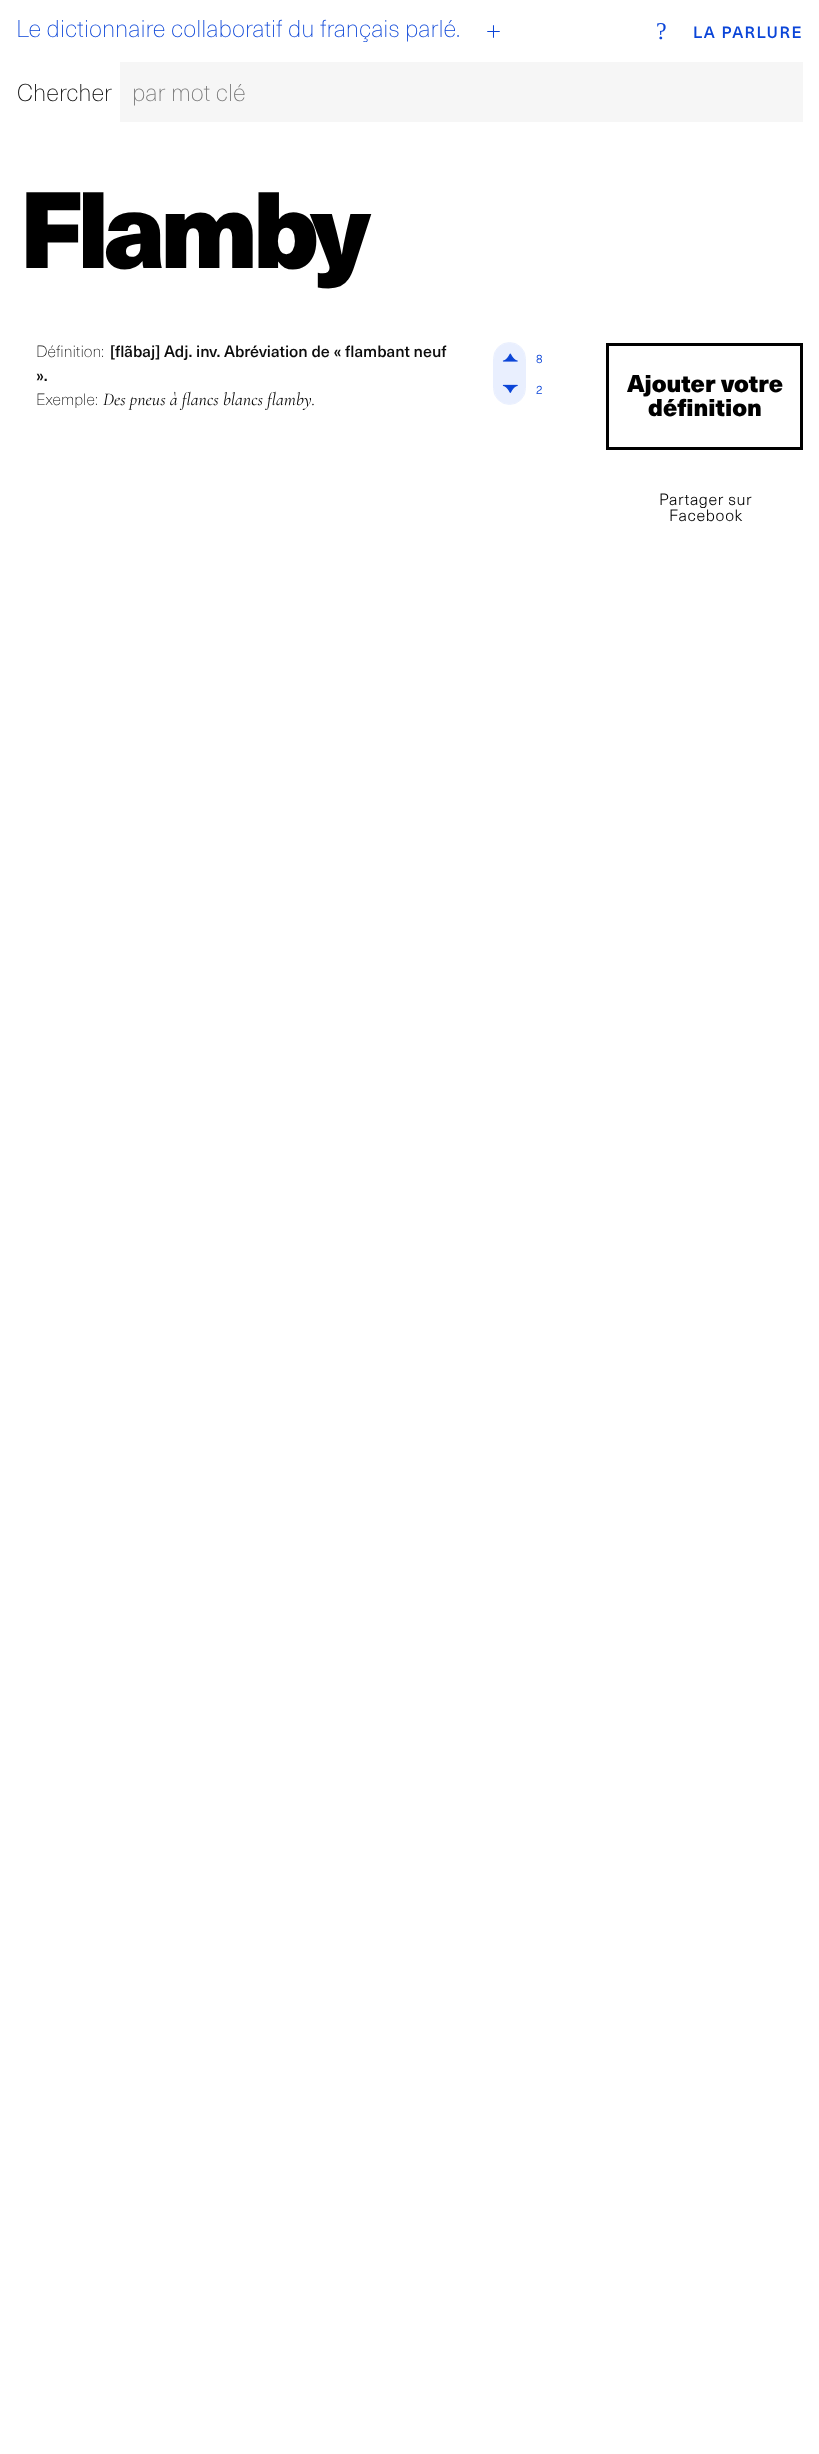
<!DOCTYPE html>
<meta charset="utf-8">
<style>body { margin: 0 } canvas { display: block }</style>
<canvas id="canvas" width="819" height="2454"></canvas>
<img id="img1" src="img_01.png" hidden>
<img id="img2" src="img_02.png" hidden>
<script>
window.onload = function () {
	const canvas = document.getElementById("canvas");
	const ctx = canvas.getContext("2d");
	ctx.miterLimit = 4;
	ctx.fontKerning = "normal";
	function txt(s, x, y) {
		ctx.fillText(s, x, y);
	}
	function fill(x, y, w, h) {
		ctx.fillRect(x, y, w, h);
	}
	function img(id, x, y, w, h) {
		ctx.drawImage(document.getElementById(id), x, y, w, h);
	}

	ctx.fillStyle = "#FFFFFF";
	fill(0, 0, 819, 2454);
	ctx.fillStyle = "#F6F6F6";
	fill(120, 62, 683, 60);
	ctx.beginPath();
	ctx.roundRect(493.5, 342.5, 32, 32, [16, 16, 0, 0]);
	ctx.strokeStyle = "#E9EFFE";
	ctx.stroke();
	ctx.fillStyle = "#E9EFFE";
	ctx.beginPath();
	ctx.roundRect(494, 343, 31, 31, [15.5, 15.5, 0, 0]);
	ctx.fill();
	img("img1", 502, 353, 16, 9);
	ctx.beginPath();
	ctx.roundRect(493.5, 373.5, 32, 31, [0, 0, 16, 16]);
	ctx.stroke();
	ctx.beginPath();
	ctx.roundRect(494, 374, 31, 30, [0, 0, 15.5, 15.5]);
	ctx.fill();
	img("img2", 502, 384, 16, 9);
	ctx.strokeStyle = "#000000";
	ctx.lineWidth = 3;
	ctx.strokeRect(607.5, 344.5, 194, 104);
	ctx.font = "100 24px 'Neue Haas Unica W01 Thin'";
	ctx.fillStyle = "#0B45D8";
	txt("Le dictionnaire collaboratif du français parlé.", 16, 37);
	ctx.font = "100 30px 'Neue Haas Unica W01 Thin'";
	txt("+", 485, 41);
	ctx.font = "24px Liberation Serif";
	txt("?", 656, 39);
	ctx.letterSpacing = "1.6px";
	ctx.font = "500 16px 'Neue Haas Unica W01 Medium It'";
	txt("LA PARLURE", 693, 38);
	ctx.letterSpacing = "0px";
	ctx.font = "100 24px 'Neue Haas Unica W01 Thin'";
	ctx.fillStyle = "#000000";
	txt("Chercher", 17, 101);
	ctx.fillStyle = "#757575";
	txt("par mot clé", 132, 101);
	ctx.letterSpacing = "-5.25px";
	ctx.font = "900 106.5px 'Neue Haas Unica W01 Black'";
	ctx.fillStyle = "#000000";
	txt("Flamby", 19, 268);
	ctx.letterSpacing = "0px";
	ctx.font = "100 16px 'Neue Haas Unica W01 Thin'";
	txt("Définition:", 36, 357);
	ctx.font = "500 16px 'Neue Haas Unica W01 Medium It'";
	ctx.fillStyle = "#0D0D0D";
	txt("[flãbaj] Adj. inv. Abréviation de « flambant neuf", 110, 357);
	txt("».", 36, 381);
	ctx.font = "100 16px 'Neue Haas Unica W01 Thin'";
	ctx.fillStyle = "#000000";
	txt("Exemple:", 36, 405);
	ctx.font = "italic 18px Cormorant Garamond";
	txt("Des pneus à flancs blancs flamby.", 103, 405);
	ctx.font = "300 12px 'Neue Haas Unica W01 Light'";
	ctx.fillStyle = "#0B45D8";
	txt("8", 536, 363);
	txt("2", 536, 394);
	ctx.font = "900 24px 'Neue Haas Unica W01 Black'";
	ctx.fillStyle = "#000000";
	txt("Ajouter votre", 627, 392);
	txt("définition", 648, 416);
	ctx.letterSpacing = "0.6px";
	ctx.font = "300 16px 'Neue Haas Unica W01 Light'";
	txt("Partager sur", 659, 505);
	txt("Facebook", 669, 521);
};
</script>
